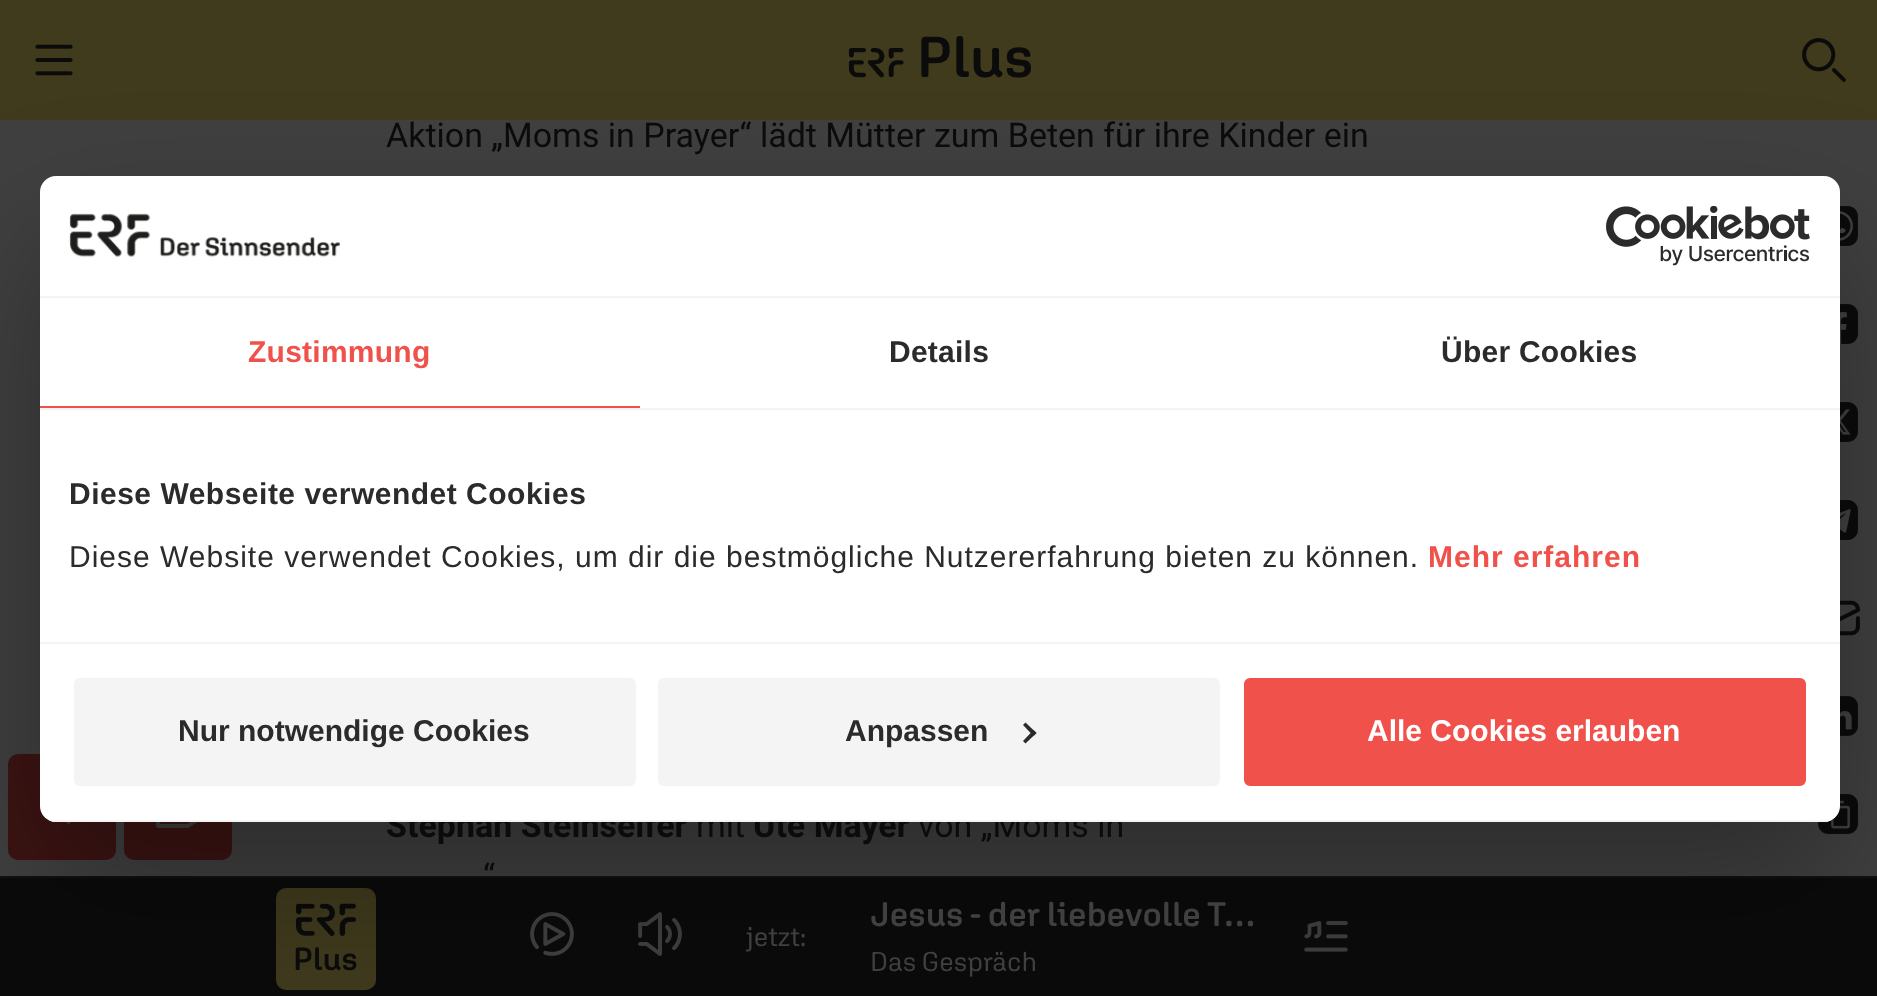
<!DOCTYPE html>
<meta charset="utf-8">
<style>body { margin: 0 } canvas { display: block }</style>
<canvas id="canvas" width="1877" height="996"></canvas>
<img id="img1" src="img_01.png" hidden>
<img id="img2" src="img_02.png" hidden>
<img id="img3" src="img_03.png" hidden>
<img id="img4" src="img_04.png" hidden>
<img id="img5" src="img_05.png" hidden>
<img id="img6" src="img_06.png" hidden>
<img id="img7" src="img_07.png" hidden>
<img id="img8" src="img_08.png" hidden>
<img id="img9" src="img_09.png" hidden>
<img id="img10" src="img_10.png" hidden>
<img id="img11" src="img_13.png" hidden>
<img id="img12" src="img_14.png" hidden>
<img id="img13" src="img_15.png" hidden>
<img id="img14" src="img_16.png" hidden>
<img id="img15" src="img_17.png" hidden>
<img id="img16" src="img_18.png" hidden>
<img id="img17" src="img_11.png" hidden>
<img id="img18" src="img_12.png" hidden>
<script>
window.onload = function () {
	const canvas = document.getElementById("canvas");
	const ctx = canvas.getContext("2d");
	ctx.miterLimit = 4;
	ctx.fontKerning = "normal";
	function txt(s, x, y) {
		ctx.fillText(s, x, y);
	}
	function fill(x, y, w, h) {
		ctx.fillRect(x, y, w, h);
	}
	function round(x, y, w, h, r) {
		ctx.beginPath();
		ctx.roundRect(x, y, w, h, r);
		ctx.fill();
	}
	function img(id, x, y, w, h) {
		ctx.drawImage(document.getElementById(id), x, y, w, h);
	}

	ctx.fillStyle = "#404040";
	fill(0, 0, 1877, 996);
	ctx.fillStyle = "#403B1D";
	fill(0, 0, 1877, 120);
	img("img1", 35, 44, 38, 32);
	img("img2", 848, 36, 183, 42);
	img("img3", 1802, 38, 44, 44);
	img("img4", 1840, 206, 18, 40);
	img("img5", 1840, 304, 18, 40);
	img("img6", 1840, 402, 18, 40);
	img("img7", 1840, 500, 18, 40);
	img("img8", 1840, 600, 20, 36);
	img("img9", 1840, 696, 18, 40);
	img("img10", 1818, 794, 40, 40);
	ctx.fillStyle = "#3C1413";
	round(8, 754, 108, 106, 10);
	img("img11", 40, 806, 31, 18);
	round(124, 754, 108, 106, 10);
	img("img12", 156, 822, 42, 6);
	ctx.fillStyle = "#0B0B0B";
	fill(0, 878, 1877, 118);
	ctx.fillStyle = "#111111";
	fill(0, 876, 1877, 2);
	ctx.fillStyle = "#403B1D";
	round(276, 888, 100, 102, 10);
	img("img13", 296, 903, 60, 33);
	img("img14", 530, 912, 44, 44);
	img("img15", 638, 912, 44, 44);
	img("img16", 1304, 921, 44, 31);
	ctx.fillStyle = "rgba(0, 0, 0, 0.3)";
	ctx.filter = "blur(68px)";
	ctx.beginPath();
	ctx.roundRect(40, 240, 1800, 646, 16);
	ctx.fill();
	ctx.filter = "none";
	ctx.font = "34px Roboto";
	ctx.fillStyle = "#0B0B0B";
	txt("Aktion „Moms in Prayer“ lädt Mütter zum Beten für ihre Kinder ein", 386, 147);
	ctx.font = "bold 34px Roboto";
	txt("Stephan Steinseifer", 386, 837);
	ctx.font = "34px Roboto";
	txt("mit", 696, 837);
	ctx.font = "bold 34px Roboto";
	txt("Ute Mayer", 753, 837);
	ctx.font = "34px Roboto";
	txt("von „Moms in", 918, 837);
	txt("“", 483, 888);
	ctx.fillStyle = "#FFFFFF";
	round(40, 176, 1800, 646, 16);
	ctx.fillStyle = "#F4F4F4";
	fill(40, 296, 1800, 2);
	img("img17", 69, 213, 271, 45);
	img("img18", 1606, 206, 204, 60);
	fill(40, 408, 1800, 2);
	ctx.fillStyle = "#F0514B";
	fill(40, 406, 600, 2);
	ctx.letterSpacing = "0.25px";
	ctx.font = "bold 30px Liberation Sans";
	txt("Zustimmung", 248, 362);
	ctx.fillStyle = "#2B2B2B";
	txt("Details", 889, 362);
	txt("Über Cookies", 1441, 362);
	ctx.fillStyle = "#F4F4F4";
	fill(40, 642, 1800, 2);
	ctx.letterSpacing = "0.5px";
	ctx.fillStyle = "#2B2B2B";
	txt("Diese Webseite verwendet Cookies", 69, 504);
	ctx.letterSpacing = "1px";
	ctx.font = "30px Liberation Sans";
	txt("Diese Website verwendet Cookies, um dir die bestmögliche Nutzererfahrung bieten zu können.", 69, 567);
	ctx.font = "bold 30px Liberation Sans";
	ctx.fillStyle = "#F0514B";
	txt("Mehr erfahren", 1428, 567);
	ctx.save();
	ctx.beginPath();
	ctx.roundRect(40, 176, 1800, 646, 16);
	ctx.clip();
	ctx.fillStyle = "#F4F4F4";
	fill(40, 820, 1800, 2);
	ctx.restore();
	ctx.fillStyle = "#F4F4F4";
	ctx.beginPath();
	ctx.roundRect(72, 676, 566, 112, 8);
	ctx.fill();
	ctx.strokeStyle = "#FFFFFF";
	ctx.lineWidth = 4;
	ctx.stroke();
	ctx.letterSpacing = "0px";
	ctx.fillStyle = "#2B2B2B";
	txt("Nur notwendige Cookies", 178, 741);
	ctx.fillStyle = "#F4F4F4";
	ctx.beginPath();
	ctx.roundRect(656, 676, 566, 112, 8);
	ctx.fill();
	ctx.stroke();
	ctx.fillStyle = "#2B2B2B";
	txt("Anpassen", 845, 741);
	ctx.beginPath();
	ctx.moveTo(1025.5, 722.5);
	ctx.lineTo(1036.5, 733);
	ctx.lineTo(1033.5, 736);
	ctx.lineTo(1023, 725);
	ctx.closePath();
	ctx.fill();
	ctx.beginPath();
	ctx.moveTo(1033.5, 730);
	ctx.lineTo(1036.5, 733);
	ctx.lineTo(1025.5, 743.5);
	ctx.lineTo(1023, 741);
	ctx.closePath();
	ctx.fill();
	ctx.fillStyle = "#F0514B";
	ctx.beginPath();
	ctx.roundRect(1242, 676, 566, 112, 8);
	ctx.fill();
	ctx.stroke();
	ctx.fillStyle = "#FFFFFF";
	txt("Alle Cookies erlauben", 1367, 741);
	ctx.font = "600 32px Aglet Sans";
	ctx.fillStyle = "#0B0B0B";
	txt("Plus", 293, 970);
	ctx.font = "27.25px Aglet Sans";
	ctx.fillStyle = "#404040";
	txt("jetzt:", 746, 946);
	ctx.font = "600 34px Aglet Sans";
	txt("Jesus - der liebevolle T…", 870, 926);
	ctx.font = "27.25px Aglet Sans";
	txt("Das Gespräch", 870, 971);
};
</script>
